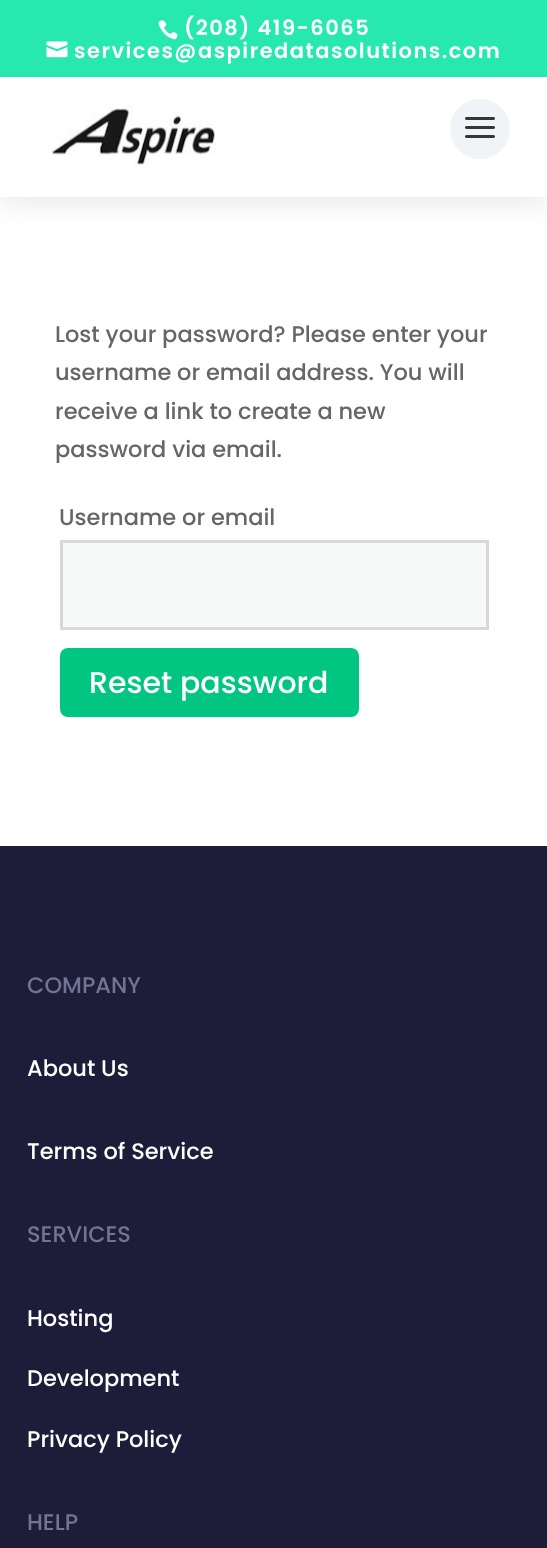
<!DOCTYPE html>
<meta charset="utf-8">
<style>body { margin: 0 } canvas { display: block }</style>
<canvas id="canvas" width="547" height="1548"></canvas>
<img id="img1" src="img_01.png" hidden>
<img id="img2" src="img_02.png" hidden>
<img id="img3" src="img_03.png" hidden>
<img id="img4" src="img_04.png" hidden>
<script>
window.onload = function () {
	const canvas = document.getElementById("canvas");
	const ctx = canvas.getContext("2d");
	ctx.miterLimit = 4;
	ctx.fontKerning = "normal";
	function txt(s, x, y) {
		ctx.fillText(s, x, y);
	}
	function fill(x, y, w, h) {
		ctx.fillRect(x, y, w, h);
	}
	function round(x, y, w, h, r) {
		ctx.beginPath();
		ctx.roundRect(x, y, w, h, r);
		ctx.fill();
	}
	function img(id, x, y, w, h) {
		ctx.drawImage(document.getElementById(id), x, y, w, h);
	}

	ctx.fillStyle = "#FFFFFF";
	fill(0, 0, 547, 1548);
	ctx.fillStyle = "rgba(0, 0, 0, 0.1)";
	ctx.filter = "blur(15px)";
	ctx.beginPath();
	ctx.rect(0, 81, 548, 120);
	ctx.fill();
	ctx.filter = "none";
	ctx.fillStyle = "#27E8AE";
	fill(0, 0, 547, 77);
	img("img1", 158, 20, 20, 20);
	img("img2", 46, 41, 22, 17);
	ctx.fillStyle = "#FFFFFF";
	fill(0, 77, 547, 120);
	img("img3", 52, 105, 164, 63);
	ctx.fillStyle = "#F0F3F8";
	ctx.beginPath();
	ctx.arc(480, 129, 30, 0, Math.PI * 2);
	ctx.fill();
	img("img4", 465, 117, 30, 21);
	ctx.fillStyle = "#F7F9F8";
	ctx.beginPath();
	ctx.rect(61.5, 541.5, 426, 87);
	ctx.fill();
	ctx.strokeStyle = "#D8D8D8";
	ctx.lineWidth = 3;
	ctx.stroke();
	ctx.fillStyle = "#00C681";
	round(60, 648, 299, 69, 8);
	ctx.fillStyle = "#1D1C39";
	fill(0, 846, 547, 702);
	ctx.letterSpacing = "1.5px";
	ctx.font = "600 21px Poppins";
	ctx.fillStyle = "#FFFFFF";
	txt("(208) 419-6065", 184, 35);
	txt("services@aspiredatasolutions.com", 74, 58);
	ctx.letterSpacing = "0px";
	ctx.font = "500 22.5px Poppins";
	ctx.fillStyle = "#666666";
	txt("Lost your password? Please enter your", 55, 342);
	txt("username or email address. You will", 55, 380);
	txt("receive a link to create a new", 55, 419);
	txt("password via email.", 55, 457);
	txt("Username or email", 59, 525);
	ctx.font = "500 30px Poppins";
	ctx.fillStyle = "#FFFFFF";
	txt("Reset password", 89, 693);
	ctx.font = "500 22.5px Poppins";
	ctx.fillStyle = "#727491";
	txt("COMPANY", 27, 993);
	ctx.fillStyle = "#FFFFFF";
	txt("About Us", 27, 1076);
	txt("Terms of Service", 27, 1159);
	ctx.fillStyle = "#727491";
	txt("SERVICES", 27, 1242);
	ctx.fillStyle = "#FFFFFF";
	txt("Hosting", 27, 1326);
	txt("Development", 27, 1386);
	txt("Privacy Policy", 27, 1447);
	ctx.fillStyle = "#727491";
	txt("HELP", 27, 1530);
};
</script>
